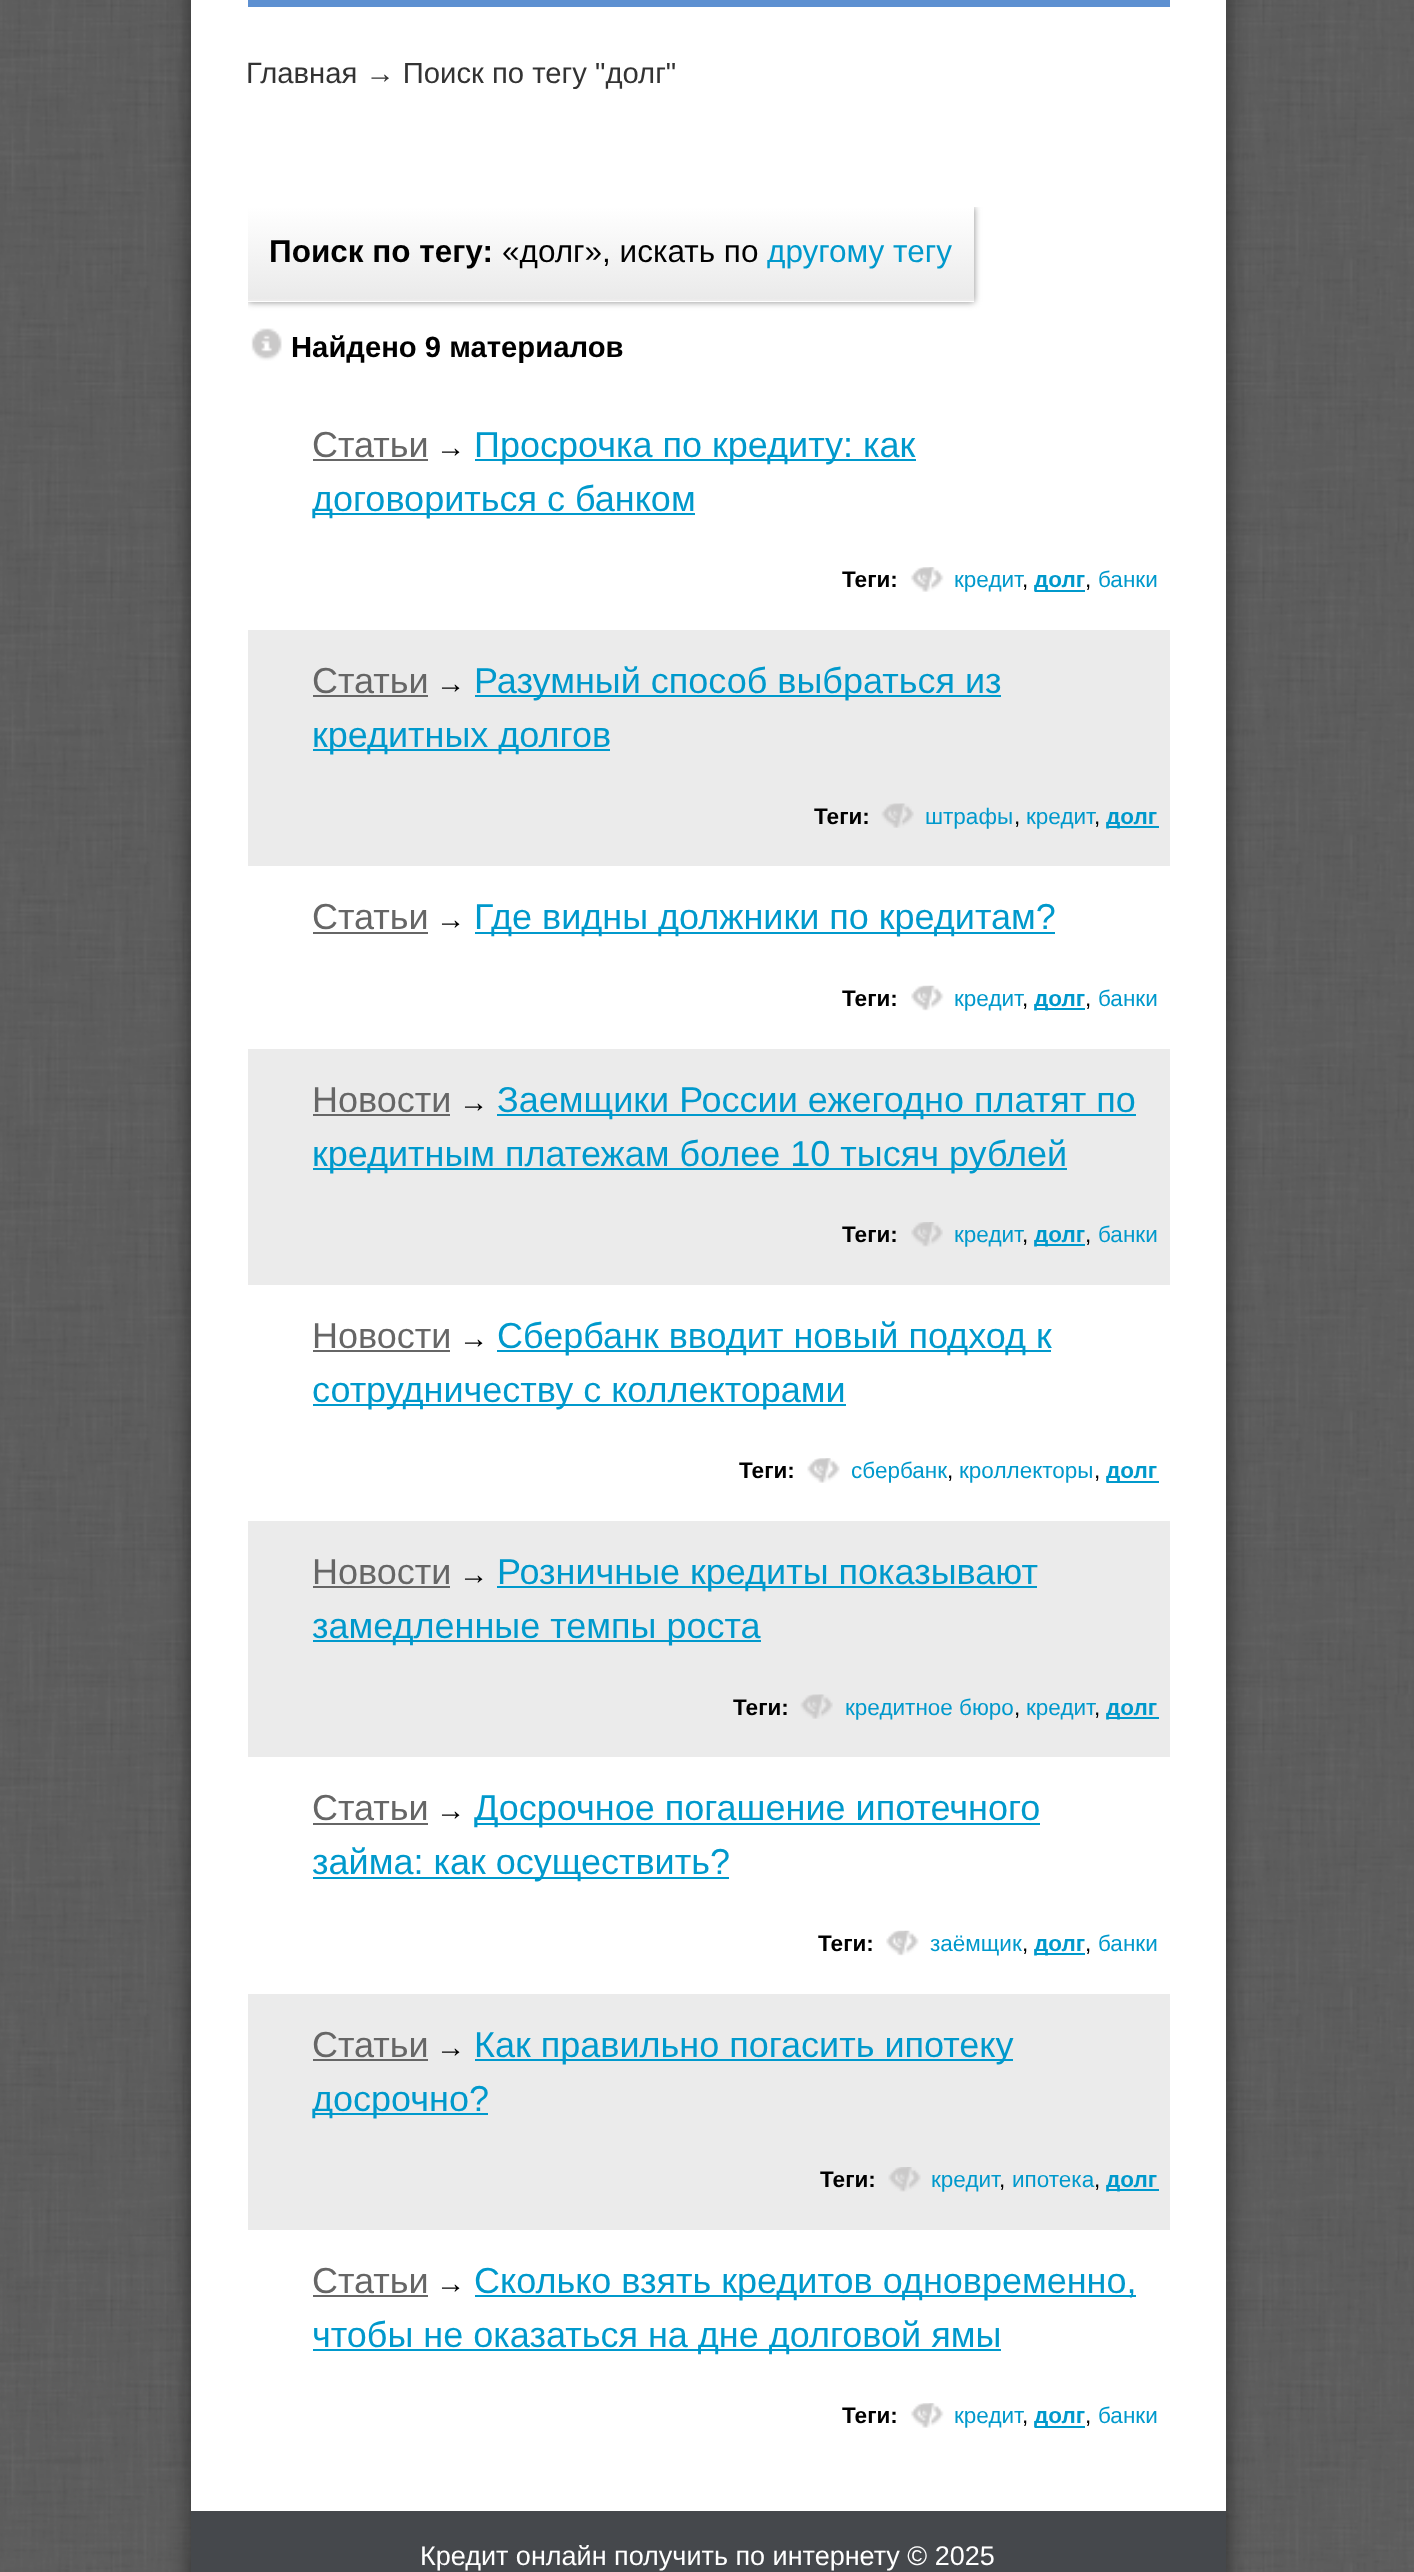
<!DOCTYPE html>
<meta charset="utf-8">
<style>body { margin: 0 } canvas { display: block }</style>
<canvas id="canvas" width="1414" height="2572"></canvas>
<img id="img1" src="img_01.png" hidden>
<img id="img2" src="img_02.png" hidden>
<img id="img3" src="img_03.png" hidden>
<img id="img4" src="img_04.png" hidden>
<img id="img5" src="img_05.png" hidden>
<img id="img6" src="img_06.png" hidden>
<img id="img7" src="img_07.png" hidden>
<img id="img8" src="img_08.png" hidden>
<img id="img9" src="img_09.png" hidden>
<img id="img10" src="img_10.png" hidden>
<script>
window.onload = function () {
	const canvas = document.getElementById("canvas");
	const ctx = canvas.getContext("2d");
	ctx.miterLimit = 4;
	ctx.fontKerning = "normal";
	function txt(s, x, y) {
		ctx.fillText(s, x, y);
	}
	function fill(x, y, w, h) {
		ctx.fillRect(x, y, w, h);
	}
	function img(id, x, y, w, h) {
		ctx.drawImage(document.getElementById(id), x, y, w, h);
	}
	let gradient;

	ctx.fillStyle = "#FFFFFF";
	fill(0, 0, 1414, 2572);
	img("img1", 0, 0, 1414, 2572);
	ctx.fillStyle = "rgba(0, 0, 0, 0.5)";
	ctx.filter = "blur(11px)";
	ctx.beginPath();
	ctx.rect(191, -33, 1035, 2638);
	ctx.fill();
	ctx.filter = "none";
	ctx.fillStyle = "#FFFFFF";
	fill(191, 0, 1035, 2511);
	ctx.fillStyle = "#5D90D1";
	fill(248, 0, 922, 7);
	ctx.save();
	ctx.beginPath();
	ctx.rect(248, 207, 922, 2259);
	ctx.clip();
	ctx.fillStyle = "#888888";
	ctx.filter = "blur(3.5px)";
	ctx.beginPath();
	ctx.rect(248, 207, 726, 95);
	ctx.fill();
	ctx.filter = "none";
	ctx.restore();
	gradient = ctx.createLinearGradient(611, 207, 611, 299);
	gradient.addColorStop(0, "#FFFFFF");
	gradient.addColorStop(1, "#EAEAEA");
	ctx.fillStyle = gradient;
	fill(248, 207, 726, 92);
	gradient = ctx.createLinearGradient(611, 299, 611, 392);
	gradient.addColorStop(0, "#FFFFFF");
	gradient.addColorStop(1, "#EAEAEA");
	ctx.fillStyle = gradient;
	fill(248, 301, 726, 1);
	ctx.fillStyle = "#EDECEC";
	fill(248, 299, 726, 2);
	img("img2", 251, 328, 31, 33);
	ctx.fillStyle = "#666666";
	fill(313, 459, 115, 2);
	ctx.fillStyle = "#0099CC";
	fill(475, 459, 441, 2);
	fill(313, 513, 382, 2);
	img("img3", 910, 567, 34, 25);
	fill(1035, 590, 50, 2);
	ctx.fillStyle = "#EBEBEB";
	fill(248, 630, 922, 236);
	ctx.fillStyle = "#666666";
	fill(313, 695, 115, 2);
	ctx.fillStyle = "#0099CC";
	fill(475, 695, 526, 2);
	fill(313, 749, 297, 2);
	img("img4", 881, 803, 33, 25);
	fill(1107, 826, 52, 2);
	ctx.fillStyle = "#666666";
	fill(313, 932, 115, 2);
	ctx.fillStyle = "#0099CC";
	fill(475, 932, 580, 2);
	img("img5", 911, 985, 33, 26);
	fill(1035, 1008, 50, 2);
	ctx.fillStyle = "#EBEBEB";
	fill(248, 1049, 922, 236);
	ctx.fillStyle = "#666666";
	fill(313, 1114, 137, 2);
	ctx.fillStyle = "#0099CC";
	fill(497, 1114, 639, 2);
	fill(313, 1168, 754, 2);
	img("img6", 911, 1222, 32, 25);
	fill(1035, 1244, 50, 2);
	ctx.fillStyle = "#666666";
	fill(313, 1350, 137, 2);
	ctx.fillStyle = "#0099CC";
	fill(497, 1350, 554, 2);
	fill(313, 1404, 533, 2);
	img("img7", 807, 1458, 33, 25);
	fill(1107, 1481, 52, 2);
	ctx.fillStyle = "#EBEBEB";
	fill(248, 1521, 922, 236);
	ctx.fillStyle = "#666666";
	fill(313, 1586, 137, 2);
	ctx.fillStyle = "#0099CC";
	fill(497, 1586, 540, 2);
	fill(313, 1640, 448, 2);
	img("img8", 800, 1694, 33, 25);
	fill(1107, 1717, 52, 2);
	ctx.fillStyle = "#666666";
	fill(313, 1823, 115, 2);
	ctx.fillStyle = "#0099CC";
	fill(475, 1823, 565, 2);
	fill(313, 1877, 416, 2);
	img("img9", 886, 1930, 33, 26);
	fill(1035, 1953, 50, 2);
	ctx.fillStyle = "#EBEBEB";
	fill(248, 1994, 922, 236);
	ctx.fillStyle = "#666666";
	fill(313, 2059, 115, 2);
	ctx.fillStyle = "#0099CC";
	fill(475, 2059, 538, 2);
	fill(313, 2113, 175, 2);
	img("img10", 888, 2167, 33, 25);
	fill(1107, 2189, 52, 2);
	ctx.fillStyle = "#666666";
	fill(313, 2295, 115, 2);
	ctx.fillStyle = "#0099CC";
	fill(475, 2295, 661, 2);
	fill(313, 2349, 688, 2);
	img("img3", 910, 2403, 34, 25);
	fill(1035, 2426, 50, 2);
	ctx.fillStyle = "#45484C";
	fill(191, 2511, 1035, 61);
	ctx.font = "29.25px Liberation Sans";
	ctx.fillStyle = "#333333";
	txt("Главная → Поиск по тегу \"долг\"", 246, 83);
	ctx.font = "bold 31.5px Liberation Sans";
	ctx.fillStyle = "#000000";
	txt("Поиск по тегу:", 269, 262);
	ctx.font = "31.5px Liberation Sans";
	txt("«долг», искать по", 502, 262);
	ctx.fillStyle = "#0099CC";
	txt("другому тегу", 767, 262);
	ctx.font = "bold 29.25px Liberation Sans";
	ctx.fillStyle = "#000000";
	txt("Найдено 9 материалов", 291, 357);
	ctx.font = "36px Liberation Sans";
	ctx.fillStyle = "#666666";
	txt("Статьи", 312, 457);
	ctx.font = "29.25px Liberation Sans";
	ctx.fillStyle = "#000000";
	txt("→", 436, 457);
	ctx.font = "36px Liberation Sans";
	ctx.fillStyle = "#0099CC";
	txt("Просрочка по кредиту: как", 474, 457);
	txt("договориться с банком", 312, 511);
	ctx.font = "bold 22.5px Liberation Sans";
	ctx.fillStyle = "#000000";
	txt("Теги:", 842, 587);
	ctx.font = "22.5px Liberation Sans";
	ctx.fillStyle = "#0099CC";
	txt("кредит", 954, 587);
	ctx.fillStyle = "#000000";
	txt(",", 1022, 587);
	ctx.font = "bold 22.5px Liberation Sans";
	ctx.fillStyle = "#0099CC";
	txt("долг", 1034, 587);
	ctx.font = "22.5px Liberation Sans";
	ctx.fillStyle = "#000000";
	txt(",", 1085, 587);
	ctx.fillStyle = "#0099CC";
	txt("банки", 1098, 587);
	ctx.font = "36px Liberation Sans";
	ctx.fillStyle = "#666666";
	txt("Статьи", 312, 693);
	ctx.font = "29.25px Liberation Sans";
	ctx.fillStyle = "#000000";
	txt("→", 436, 693);
	ctx.font = "36px Liberation Sans";
	ctx.fillStyle = "#0099CC";
	txt("Разумный способ выбраться из", 474, 693);
	txt("кредитных долгов", 312, 747);
	ctx.font = "bold 22.5px Liberation Sans";
	ctx.fillStyle = "#000000";
	txt("Теги:", 814, 824);
	ctx.font = "22.5px Liberation Sans";
	ctx.fillStyle = "#0099CC";
	txt("штрафы", 925, 824);
	ctx.fillStyle = "#000000";
	txt(",", 1014, 824);
	ctx.fillStyle = "#0099CC";
	txt("кредит", 1026, 824);
	ctx.fillStyle = "#000000";
	txt(",", 1094, 824);
	ctx.font = "bold 22.5px Liberation Sans";
	ctx.fillStyle = "#0099CC";
	txt("долг", 1106, 824);
	ctx.font = "36px Liberation Sans";
	ctx.fillStyle = "#666666";
	txt("Статьи", 312, 929);
	ctx.font = "29.25px Liberation Sans";
	ctx.fillStyle = "#000000";
	txt("→", 436, 929);
	ctx.font = "36px Liberation Sans";
	ctx.fillStyle = "#0099CC";
	txt("Где видны должники по кредитам?", 474, 929);
	ctx.font = "bold 22.5px Liberation Sans";
	ctx.fillStyle = "#000000";
	txt("Теги:", 842, 1006);
	ctx.font = "22.5px Liberation Sans";
	ctx.fillStyle = "#0099CC";
	txt("кредит", 954, 1006);
	ctx.fillStyle = "#000000";
	txt(",", 1022, 1006);
	ctx.font = "bold 22.5px Liberation Sans";
	ctx.fillStyle = "#0099CC";
	txt("долг", 1034, 1006);
	ctx.font = "22.5px Liberation Sans";
	ctx.fillStyle = "#000000";
	txt(",", 1085, 1006);
	ctx.fillStyle = "#0099CC";
	txt("банки", 1098, 1006);
	ctx.font = "36px Liberation Sans";
	ctx.fillStyle = "#666666";
	txt("Новости", 312, 1112);
	ctx.font = "29.25px Liberation Sans";
	ctx.fillStyle = "#000000";
	txt("→", 459, 1112);
	ctx.font = "36px Liberation Sans";
	ctx.fillStyle = "#0099CC";
	txt("Заемщики России ежегодно платят по", 497, 1112);
	txt("кредитным платежам более 10 тысяч рублей", 312, 1166);
	ctx.font = "bold 22.5px Liberation Sans";
	ctx.fillStyle = "#000000";
	txt("Теги:", 842, 1242);
	ctx.font = "22.5px Liberation Sans";
	ctx.fillStyle = "#0099CC";
	txt("кредит", 954, 1242);
	ctx.fillStyle = "#000000";
	txt(",", 1022, 1242);
	ctx.font = "bold 22.5px Liberation Sans";
	ctx.fillStyle = "#0099CC";
	txt("долг", 1034, 1242);
	ctx.font = "22.5px Liberation Sans";
	ctx.fillStyle = "#000000";
	txt(",", 1085, 1242);
	ctx.fillStyle = "#0099CC";
	txt("банки", 1098, 1242);
	ctx.font = "36px Liberation Sans";
	ctx.fillStyle = "#666666";
	txt("Новости", 312, 1348);
	ctx.font = "29.25px Liberation Sans";
	ctx.fillStyle = "#000000";
	txt("→", 459, 1348);
	ctx.font = "36px Liberation Sans";
	ctx.fillStyle = "#0099CC";
	txt("Сбербанк вводит новый подход к", 497, 1348);
	txt("сотрудничеству с коллекторами", 312, 1402);
	ctx.font = "bold 22.5px Liberation Sans";
	ctx.fillStyle = "#000000";
	txt("Теги:", 739, 1478);
	ctx.font = "22.5px Liberation Sans";
	ctx.fillStyle = "#0099CC";
	txt("сбербанк", 851, 1478);
	ctx.fillStyle = "#000000";
	txt(",", 947, 1478);
	ctx.fillStyle = "#0099CC";
	txt("кроллекторы", 959, 1478);
	ctx.fillStyle = "#000000";
	txt(",", 1094, 1478);
	ctx.font = "bold 22.5px Liberation Sans";
	ctx.fillStyle = "#0099CC";
	txt("долг", 1106, 1478);
	ctx.font = "36px Liberation Sans";
	ctx.fillStyle = "#666666";
	txt("Новости", 312, 1584);
	ctx.font = "29.25px Liberation Sans";
	ctx.fillStyle = "#000000";
	txt("→", 459, 1584);
	ctx.font = "36px Liberation Sans";
	ctx.fillStyle = "#0099CC";
	txt("Розничные кредиты показывают", 497, 1584);
	txt("замедленные темпы роста", 312, 1638);
	ctx.font = "bold 22.5px Liberation Sans";
	ctx.fillStyle = "#000000";
	txt("Теги:", 733, 1715);
	ctx.font = "22.5px Liberation Sans";
	ctx.fillStyle = "#0099CC";
	txt("кредитное бюро", 845, 1715);
	ctx.fillStyle = "#000000";
	txt(",", 1014, 1715);
	ctx.fillStyle = "#0099CC";
	txt("кредит", 1026, 1715);
	ctx.fillStyle = "#000000";
	txt(",", 1094, 1715);
	ctx.font = "bold 22.5px Liberation Sans";
	ctx.fillStyle = "#0099CC";
	txt("долг", 1106, 1715);
	ctx.font = "36px Liberation Sans";
	ctx.fillStyle = "#666666";
	txt("Статьи", 312, 1820);
	ctx.font = "29.25px Liberation Sans";
	ctx.fillStyle = "#000000";
	txt("→", 436, 1820);
	ctx.font = "36px Liberation Sans";
	ctx.fillStyle = "#0099CC";
	txt("Досрочное погашение ипотечного", 474, 1820);
	txt("займа: как осуществить?", 312, 1874);
	ctx.font = "bold 22.5px Liberation Sans";
	ctx.fillStyle = "#000000";
	txt("Теги:", 818, 1951);
	ctx.font = "22.5px Liberation Sans";
	ctx.fillStyle = "#0099CC";
	txt("заёмщик", 930, 1951);
	ctx.fillStyle = "#000000";
	txt(",", 1022, 1951);
	ctx.font = "bold 22.5px Liberation Sans";
	ctx.fillStyle = "#0099CC";
	txt("долг", 1034, 1951);
	ctx.font = "22.5px Liberation Sans";
	ctx.fillStyle = "#000000";
	txt(",", 1085, 1951);
	ctx.fillStyle = "#0099CC";
	txt("банки", 1098, 1951);
	ctx.font = "36px Liberation Sans";
	ctx.fillStyle = "#666666";
	txt("Статьи", 312, 2057);
	ctx.font = "29.25px Liberation Sans";
	ctx.fillStyle = "#000000";
	txt("→", 436, 2057);
	ctx.font = "36px Liberation Sans";
	ctx.fillStyle = "#0099CC";
	txt("Как правильно погасить ипотеку", 474, 2057);
	txt("досрочно?", 312, 2111);
	ctx.font = "bold 22.5px Liberation Sans";
	ctx.fillStyle = "#000000";
	txt("Теги:", 820, 2187);
	ctx.font = "22.5px Liberation Sans";
	ctx.fillStyle = "#0099CC";
	txt("кредит", 931, 2187);
	ctx.fillStyle = "#000000";
	txt(",", 999, 2187);
	ctx.fillStyle = "#0099CC";
	txt("ипотека", 1012, 2187);
	ctx.fillStyle = "#000000";
	txt(",", 1094, 2187);
	ctx.font = "bold 22.5px Liberation Sans";
	ctx.fillStyle = "#0099CC";
	txt("долг", 1106, 2187);
	ctx.font = "36px Liberation Sans";
	ctx.fillStyle = "#666666";
	txt("Статьи", 312, 2293);
	ctx.font = "29.25px Liberation Sans";
	ctx.fillStyle = "#000000";
	txt("→", 436, 2293);
	ctx.font = "36px Liberation Sans";
	ctx.fillStyle = "#0099CC";
	txt("Сколько взять кредитов одновременно,", 474, 2293);
	txt("чтобы не оказаться на дне долговой ямы", 312, 2347);
	ctx.font = "bold 22.5px Liberation Sans";
	ctx.fillStyle = "#000000";
	txt("Теги:", 842, 2423);
	ctx.font = "22.5px Liberation Sans";
	ctx.fillStyle = "#0099CC";
	txt("кредит", 954, 2423);
	ctx.fillStyle = "#000000";
	txt(",", 1022, 2423);
	ctx.font = "bold 22.5px Liberation Sans";
	ctx.fillStyle = "#0099CC";
	txt("долг", 1034, 2423);
	ctx.font = "22.5px Liberation Sans";
	ctx.fillStyle = "#000000";
	txt(",", 1085, 2423);
	ctx.fillStyle = "#0099CC";
	txt("банки", 1098, 2423);
	ctx.font = "27px Liberation Sans";
	ctx.fillStyle = "#FFFFFF";
	txt("Кредит онлайн получить по интернету © 2025", 420, 2565);
};
</script>
